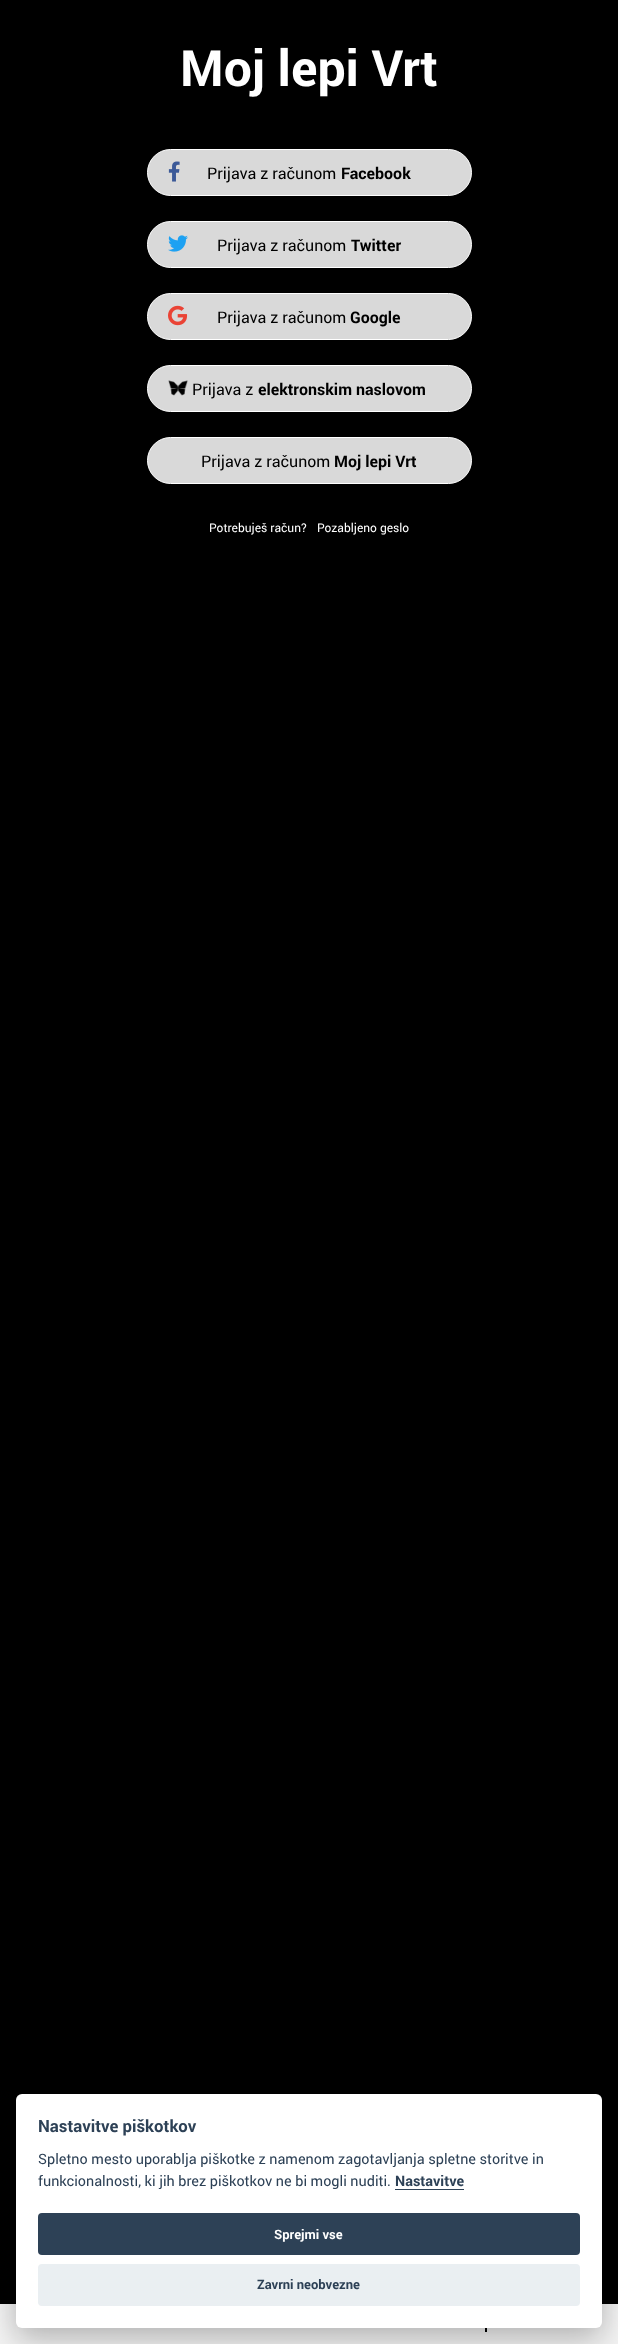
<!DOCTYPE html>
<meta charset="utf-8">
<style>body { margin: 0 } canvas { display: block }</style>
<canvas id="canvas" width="618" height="2344"></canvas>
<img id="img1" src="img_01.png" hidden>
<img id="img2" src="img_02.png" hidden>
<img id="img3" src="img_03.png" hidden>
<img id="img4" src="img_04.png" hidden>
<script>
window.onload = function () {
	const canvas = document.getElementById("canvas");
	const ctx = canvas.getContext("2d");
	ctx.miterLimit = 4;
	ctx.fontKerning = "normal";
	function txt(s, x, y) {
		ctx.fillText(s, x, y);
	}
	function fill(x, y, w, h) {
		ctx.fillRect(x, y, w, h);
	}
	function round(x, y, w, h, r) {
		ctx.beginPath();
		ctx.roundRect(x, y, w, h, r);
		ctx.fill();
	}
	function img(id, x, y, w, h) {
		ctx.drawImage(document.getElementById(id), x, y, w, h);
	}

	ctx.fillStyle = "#000000";
	fill(0, 0, 618, 2344);
	ctx.fillStyle = "#D9D9D9";
	ctx.beginPath();
	ctx.roundRect(147.5, 149.5, 324, 46, 23);
	ctx.fill();
	ctx.strokeStyle = "#FFFFFF";
	ctx.stroke();
	img("img1", 168, 161, 12, 21);
	ctx.beginPath();
	ctx.roundRect(147.5, 221.5, 324, 46, 23);
	ctx.fill();
	ctx.stroke();
	img("img2", 168, 235, 20, 17);
	ctx.beginPath();
	ctx.roundRect(147.5, 293.5, 324, 46, 23);
	ctx.fill();
	ctx.stroke();
	img("img3", 168, 305, 20, 21);
	ctx.beginPath();
	ctx.roundRect(147.5, 365.5, 324, 46, 23);
	ctx.fill();
	ctx.stroke();
	img("img4", 168, 380, 20, 16);
	ctx.beginPath();
	ctx.roundRect(147.5, 437.5, 324, 46, 23);
	ctx.fill();
	ctx.stroke();
	ctx.fillStyle = "#F3F3F3";
	fill(0, 2304, 618, 40);
	ctx.fillStyle = "#000000";
	fill(485, 2328, 2, 4);
	ctx.fillStyle = "rgba(2, 2, 3, 0.28)";
	ctx.filter = "blur(15px)";
	ctx.beginPath();
	ctx.roundRect(16, 2104, 586, 234, 6);
	ctx.fill();
	ctx.filter = "none";
	ctx.fillStyle = "#FFFFFF";
	round(16, 2094, 586, 234, 6);
	ctx.fillStyle = "#2D4156";
	fill(395, 2189, 69, 1);
	round(38, 2213, 542, 42, 4);
	ctx.fillStyle = "#EAEFF2";
	round(38, 2264, 542, 42, 4);
	ctx.font = "bold 50px Roboto";
	ctx.fillStyle = "#FFFFFF";
	txt("Moj lepi Vrt", 180, 86);
	ctx.font = "16px Roboto";
	ctx.fillStyle = "#000000";
	txt("Prijava z računom", 207, 179);
	ctx.font = "bold 16px Roboto";
	txt("Facebook", 341, 179);
	ctx.font = "16px Roboto";
	txt("Prijava z računom", 217, 251);
	ctx.font = "bold 16px Roboto";
	txt("Twitter", 351, 251);
	ctx.font = "16px Roboto";
	txt("Prijava z računom", 217, 323);
	ctx.font = "bold 16px Roboto";
	txt("Google", 350, 323);
	ctx.font = "16px Roboto";
	txt("Prijava z", 192, 395);
	ctx.font = "bold 16px Roboto";
	txt("elektronskim naslovom", 258, 395);
	ctx.font = "16px Roboto";
	txt("Prijava z računom", 201, 467);
	ctx.font = "bold 16px Roboto";
	txt("Moj lepi Vrt", 334, 467);
	ctx.font = "12px Roboto";
	ctx.fillStyle = "#FFFFFF";
	txt("Potrebuješ račun?", 209, 532);
	txt("Pozabljeno geslo", 317, 532);
	ctx.font = "bold 16.75px Roboto";
	ctx.fillStyle = "#2D4156";
	txt("Nastavitve piškotkov", 38, 2132);
	ctx.font = "14.4px Roboto";
	txt("Spletno mesto uporablja piškotke z namenom zagotavljanja spletne storitve in", 38, 2164);
	txt("funkcionalnosti, ki jih brez piškotkov ne bi mogli nuditi.", 38, 2186);
	ctx.font = "bold 14.4px Roboto";
	txt("Nastavitve", 395, 2186);
	ctx.font = "bold 13px Roboto";
	ctx.fillStyle = "#FFFFFF";
	txt("Sprejmi vse", 274, 2239);
	ctx.fillStyle = "#2D4156";
	txt("Zavrni neobvezne", 257, 2289);
};
</script>
